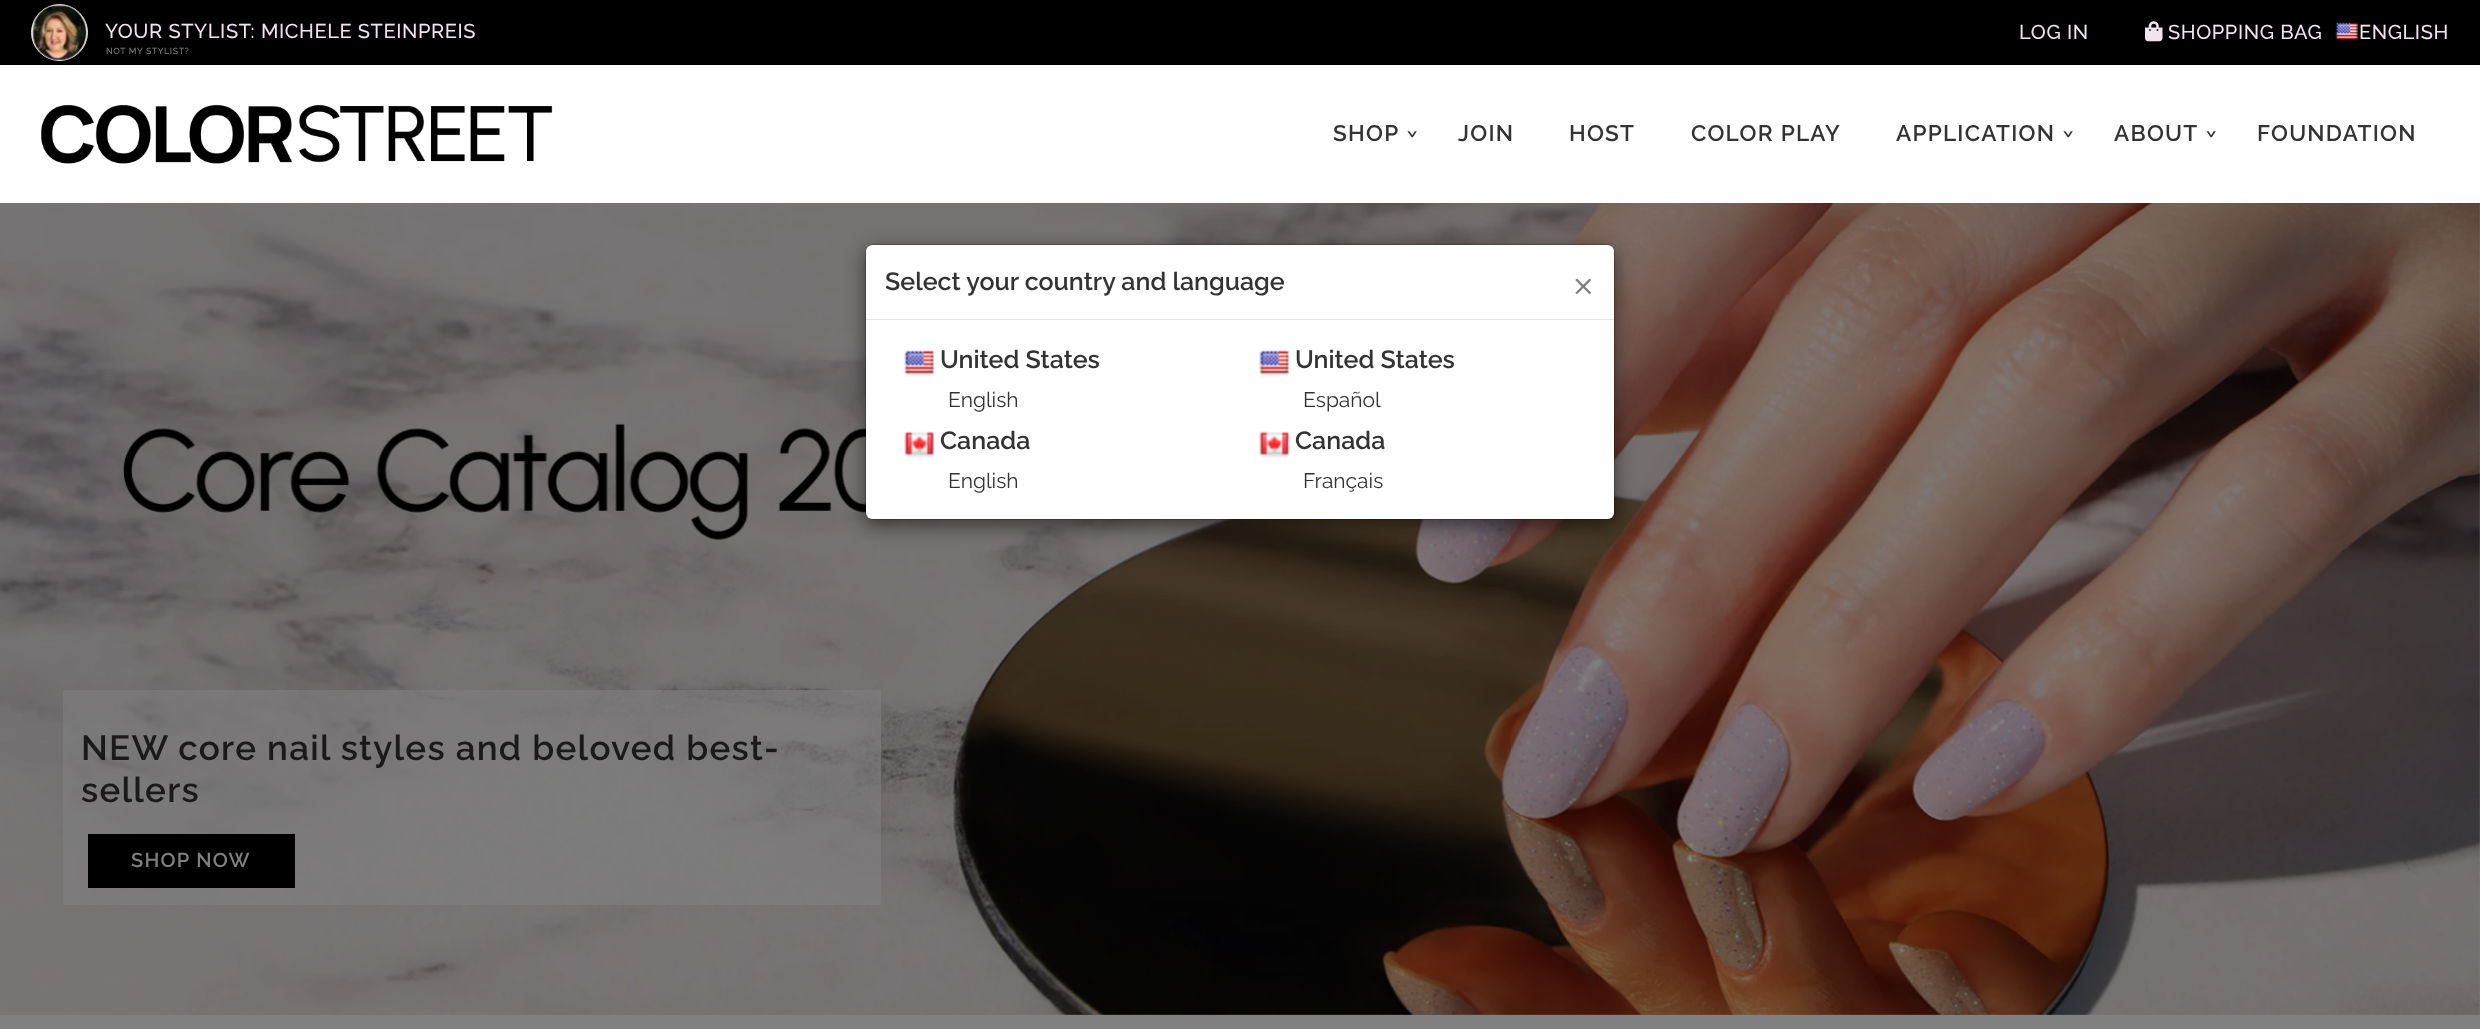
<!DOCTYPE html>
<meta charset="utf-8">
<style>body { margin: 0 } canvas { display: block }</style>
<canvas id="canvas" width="2480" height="1029"></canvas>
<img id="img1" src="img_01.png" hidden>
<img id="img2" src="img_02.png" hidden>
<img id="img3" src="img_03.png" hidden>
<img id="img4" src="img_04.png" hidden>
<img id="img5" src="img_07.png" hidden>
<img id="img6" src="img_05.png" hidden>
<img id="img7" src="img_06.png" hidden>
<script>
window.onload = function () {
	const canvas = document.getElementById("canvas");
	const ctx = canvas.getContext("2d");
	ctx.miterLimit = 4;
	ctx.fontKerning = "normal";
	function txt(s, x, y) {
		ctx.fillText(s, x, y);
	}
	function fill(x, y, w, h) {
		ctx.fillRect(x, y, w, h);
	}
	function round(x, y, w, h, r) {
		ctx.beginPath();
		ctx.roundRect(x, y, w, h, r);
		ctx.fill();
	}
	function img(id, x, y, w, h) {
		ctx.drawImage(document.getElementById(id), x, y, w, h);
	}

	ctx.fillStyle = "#808080";
	fill(0, 0, 2480, 1029);
	ctx.fillStyle = "#000000";
	fill(0, 0, 2480, 65);
	ctx.fillStyle = "#FFFFFF";
	ctx.beginPath();
	ctx.arc(59.5, 32.5, 28, 0, Math.PI * 2);
	ctx.fill();
	ctx.strokeStyle = "#DDDDDD";
	ctx.stroke();
	img("img1", 32, 4, 55, 57);
	img("img2", 2145, 21, 18, 21);
	img("img3", 2335, 22, 23, 18);
	fill(0, 65, 2480, 138);
	img("img4", 41, 104, 512, 60);
	img("img5", 0, 203, 2480, 812);
	ctx.fillStyle = "rgba(0, 0, 0, 0.5)";
	ctx.filter = "blur(9.5px)";
	ctx.beginPath();
	ctx.roundRect(865, 250, 750, 276, 8);
	ctx.fill();
	ctx.filter = "none";
	ctx.fillStyle = "#FFFFFF";
	round(866, 245, 748, 274, 6);
	ctx.beginPath();
	ctx.roundRect(865.5, 244.5, 749, 275, 7.5);
	ctx.strokeStyle = "rgba(0, 0, 0, 0.2)";
	ctx.stroke();
	ctx.fillStyle = "#E5E5E5";
	fill(866, 319, 748, 1);
	img("img6", 904, 350, 31, 27);
	img("img6", 1259, 350, 31, 27);
	img("img7", 904, 431, 31, 27);
	img("img7", 1259, 431, 31, 27);
	ctx.fillStyle = "rgba(128, 128, 128, 0.6)";
	fill(63, 690, 818, 215);
	ctx.fillStyle = "#000000";
	fill(88, 834, 207, 54);
	ctx.letterSpacing = "0.6px";
	ctx.font = "500 20px Raleway";
	ctx.fillStyle = "#F2E3F1";
	txt("YOUR STYLIST: MICHELE STEINPREIS", 105, 38);
	ctx.font = "500 8.75px Raleway";
	ctx.fillStyle = "#808080";
	txt("NOT MY STYLIST?", 106, 54);
	ctx.font = "500 20px Raleway";
	ctx.fillStyle = "#F2E3F1";
	txt("LOG IN", 2019, 39);
	txt("SHOPPING BAG", 2168, 39);
	txt("ENGLISH", 2359, 39);
	ctx.letterSpacing = "1.25px";
	ctx.font = "600 22.5px Raleway";
	ctx.fillStyle = "#333333";
	txt("SHOP", 1333, 141);
	ctx.save();
	ctx.translate(1418, 138);
	ctx.rotate(-90 * Math.PI / 180);
	ctx.fillText("‹", 0, 0);
	ctx.restore();
	txt("JOIN", 1458, 141);
	txt("HOST", 1569, 141);
	txt("COLOR PLAY", 1691, 141);
	txt("APPLICATION", 1896, 141);
	ctx.save();
	ctx.translate(2074, 138);
	ctx.rotate(-90 * Math.PI / 180);
	ctx.fillText("‹", 0, 0);
	ctx.restore();
	txt("ABOUT", 2114, 141);
	ctx.save();
	ctx.translate(2217, 138);
	ctx.rotate(-90 * Math.PI / 180);
	ctx.fillText("‹", 0, 0);
	ctx.restore();
	txt("FOUNDATION", 2257, 141);
	ctx.letterSpacing = "0px";
	ctx.font = "600 25px Raleway";
	txt("Select your country and language", 885, 290);
	ctx.letterSpacing = "0.6px";
	ctx.font = "300 50px Raleway";
	ctx.fillStyle = "#808080";
	txt("×", 1572, 300);
	ctx.letterSpacing = "0px";
	ctx.font = "600 25px Raleway";
	ctx.fillStyle = "#333333";
	txt("United States", 940, 368);
	ctx.font = "21px Raleway";
	txt("English", 948, 407);
	ctx.font = "600 25px Raleway";
	txt("United States", 1295, 368);
	ctx.font = "21px Raleway";
	txt("Español", 1303, 407);
	ctx.font = "600 25px Raleway";
	txt("Canada", 940, 449);
	ctx.font = "21px Raleway";
	txt("English", 948, 488);
	ctx.font = "600 25px Raleway";
	txt("Canada", 1295, 449);
	ctx.font = "21px Raleway";
	txt("Français", 1303, 488);
	ctx.letterSpacing = "1.25px";
	ctx.font = "600 35px Raleway";
	ctx.fillStyle = "#1A1A1A";
	txt("NEW core nail styles and beloved best-", 81, 760);
	txt("sellers", 81, 802);
	ctx.font = "600 20px Raleway";
	ctx.fillStyle = "#808080";
	txt("SHOP NOW", 131, 867);
};
</script>
